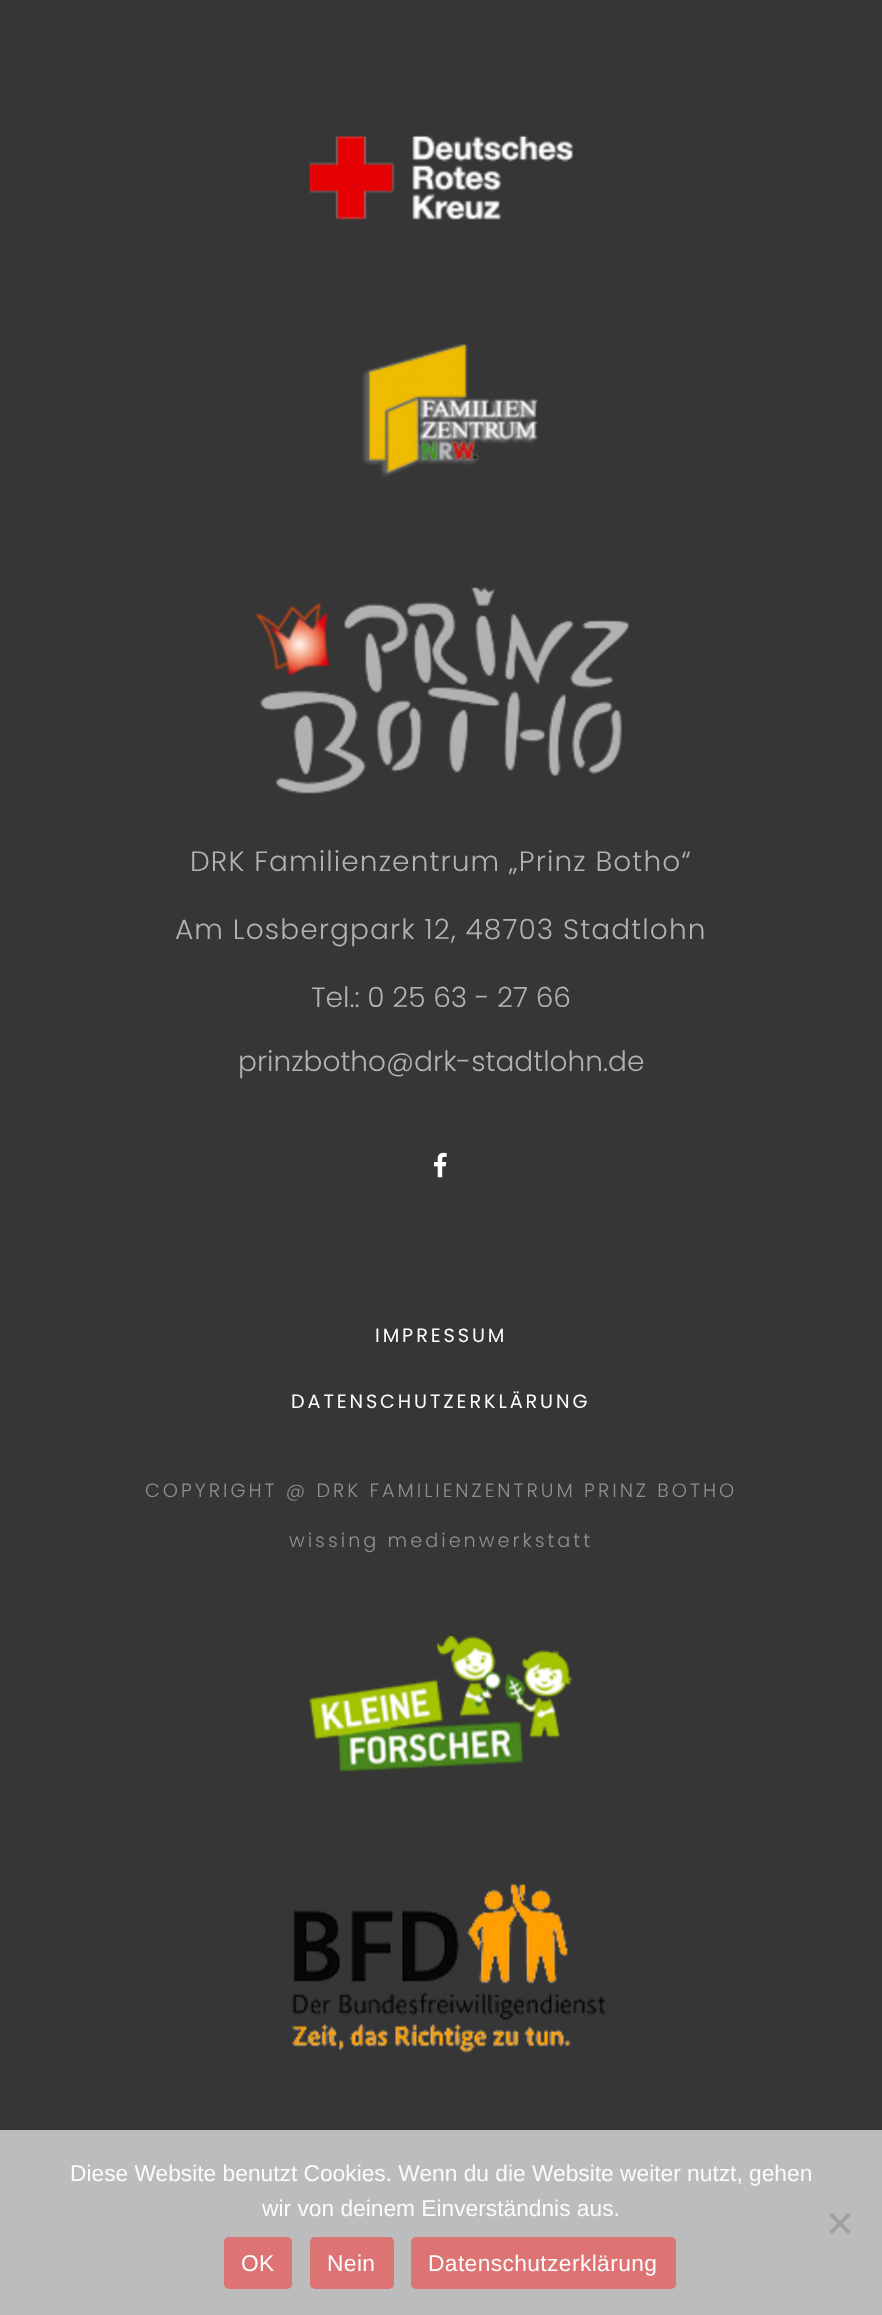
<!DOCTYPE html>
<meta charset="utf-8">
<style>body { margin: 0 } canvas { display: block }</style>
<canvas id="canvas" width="882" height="2315"></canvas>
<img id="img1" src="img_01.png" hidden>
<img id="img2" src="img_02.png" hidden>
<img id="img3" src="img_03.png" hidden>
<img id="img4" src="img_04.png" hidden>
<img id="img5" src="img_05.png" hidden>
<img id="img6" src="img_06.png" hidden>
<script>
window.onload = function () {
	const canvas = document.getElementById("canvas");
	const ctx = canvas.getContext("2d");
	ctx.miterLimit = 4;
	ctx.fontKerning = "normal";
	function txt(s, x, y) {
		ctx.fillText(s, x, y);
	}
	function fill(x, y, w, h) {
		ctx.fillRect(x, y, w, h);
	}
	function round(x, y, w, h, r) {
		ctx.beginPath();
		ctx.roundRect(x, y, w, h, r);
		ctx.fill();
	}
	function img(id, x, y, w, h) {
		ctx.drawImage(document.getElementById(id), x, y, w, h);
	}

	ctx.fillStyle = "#363636";
	fill(0, 0, 882, 2315);
	img("img1", 309, 135, 264, 85);
	img("img2", 362, 343, 176, 134);
	img("img3", 255, 587, 374, 207);
	img("img4", 434, 1152, 13, 26);
	img("img5", 309, 1636, 264, 136);
	img("img6", 291, 1883, 315, 171);
	ctx.fillStyle = "#BCBCBC";
	fill(0, 2130, 882, 185);
	ctx.fillStyle = "#9E9E9E";
	ctx.beginPath();
	ctx.moveTo(848, 2213);
	ctx.lineTo(850.5, 2215.5);
	ctx.lineTo(832, 2234);
	ctx.lineTo(829.5, 2231.5);
	ctx.closePath();
	ctx.fill();
	ctx.beginPath();
	ctx.moveTo(829.5, 2215.5);
	ctx.lineTo(832, 2213);
	ctx.lineTo(850.5, 2231.5);
	ctx.lineTo(848, 2234);
	ctx.closePath();
	ctx.fill();
	ctx.fillStyle = "#DD7373";
	round(224, 2237, 68, 52, 5);
	round(310, 2237, 84, 52, 5);
	round(411, 2237, 265, 52, 5);
	ctx.letterSpacing = "1.1px";
	ctx.font = "300 28px Poppins";
	ctx.fillStyle = "#B1B2B2";
	txt("DRK Familienzentrum „Prinz Botho“", 190, 871);
	txt("Am Losbergpark 12, 48703 Stadtlohn", 175, 939);
	ctx.letterSpacing = "0px";
	txt("Tel.: 0 25 63 - 27 66", 311, 1007);
	txt("prinzbotho@drk-stadtlohn.de", 238, 1071);
	ctx.letterSpacing = "2.9px";
	ctx.font = "19.25px Poppins";
	ctx.fillStyle = "#FBFBFB";
	txt("IMPRESSUM", 375, 1342);
	txt("DATENSCHUTZERKLÄRUNG", 291, 1408);
	ctx.letterSpacing = "3px";
	ctx.font = "300 19.25px Poppins";
	ctx.fillStyle = "#919191";
	txt("COPYRIGHT @ DRK FAMILIENZENTRUM PRINZ BOTHO", 145, 1497);
	txt("wissing medienwerkstatt", 289, 1547);
	ctx.letterSpacing = "0px";
	ctx.font = "22.75px Liberation Sans";
	ctx.fillStyle = "#FBFBFB";
	txt("Diese Website benutzt Cookies. Wenn du die Website weiter nutzt, gehen", 70, 2181);
	txt("wir von deinem Einverständnis aus.", 262, 2216);
	ctx.letterSpacing = "0.4px";
	txt("OK", 241, 2271);
	txt("Nein", 327, 2271);
	txt("Datenschutzerklärung", 428, 2271);
};
</script>
